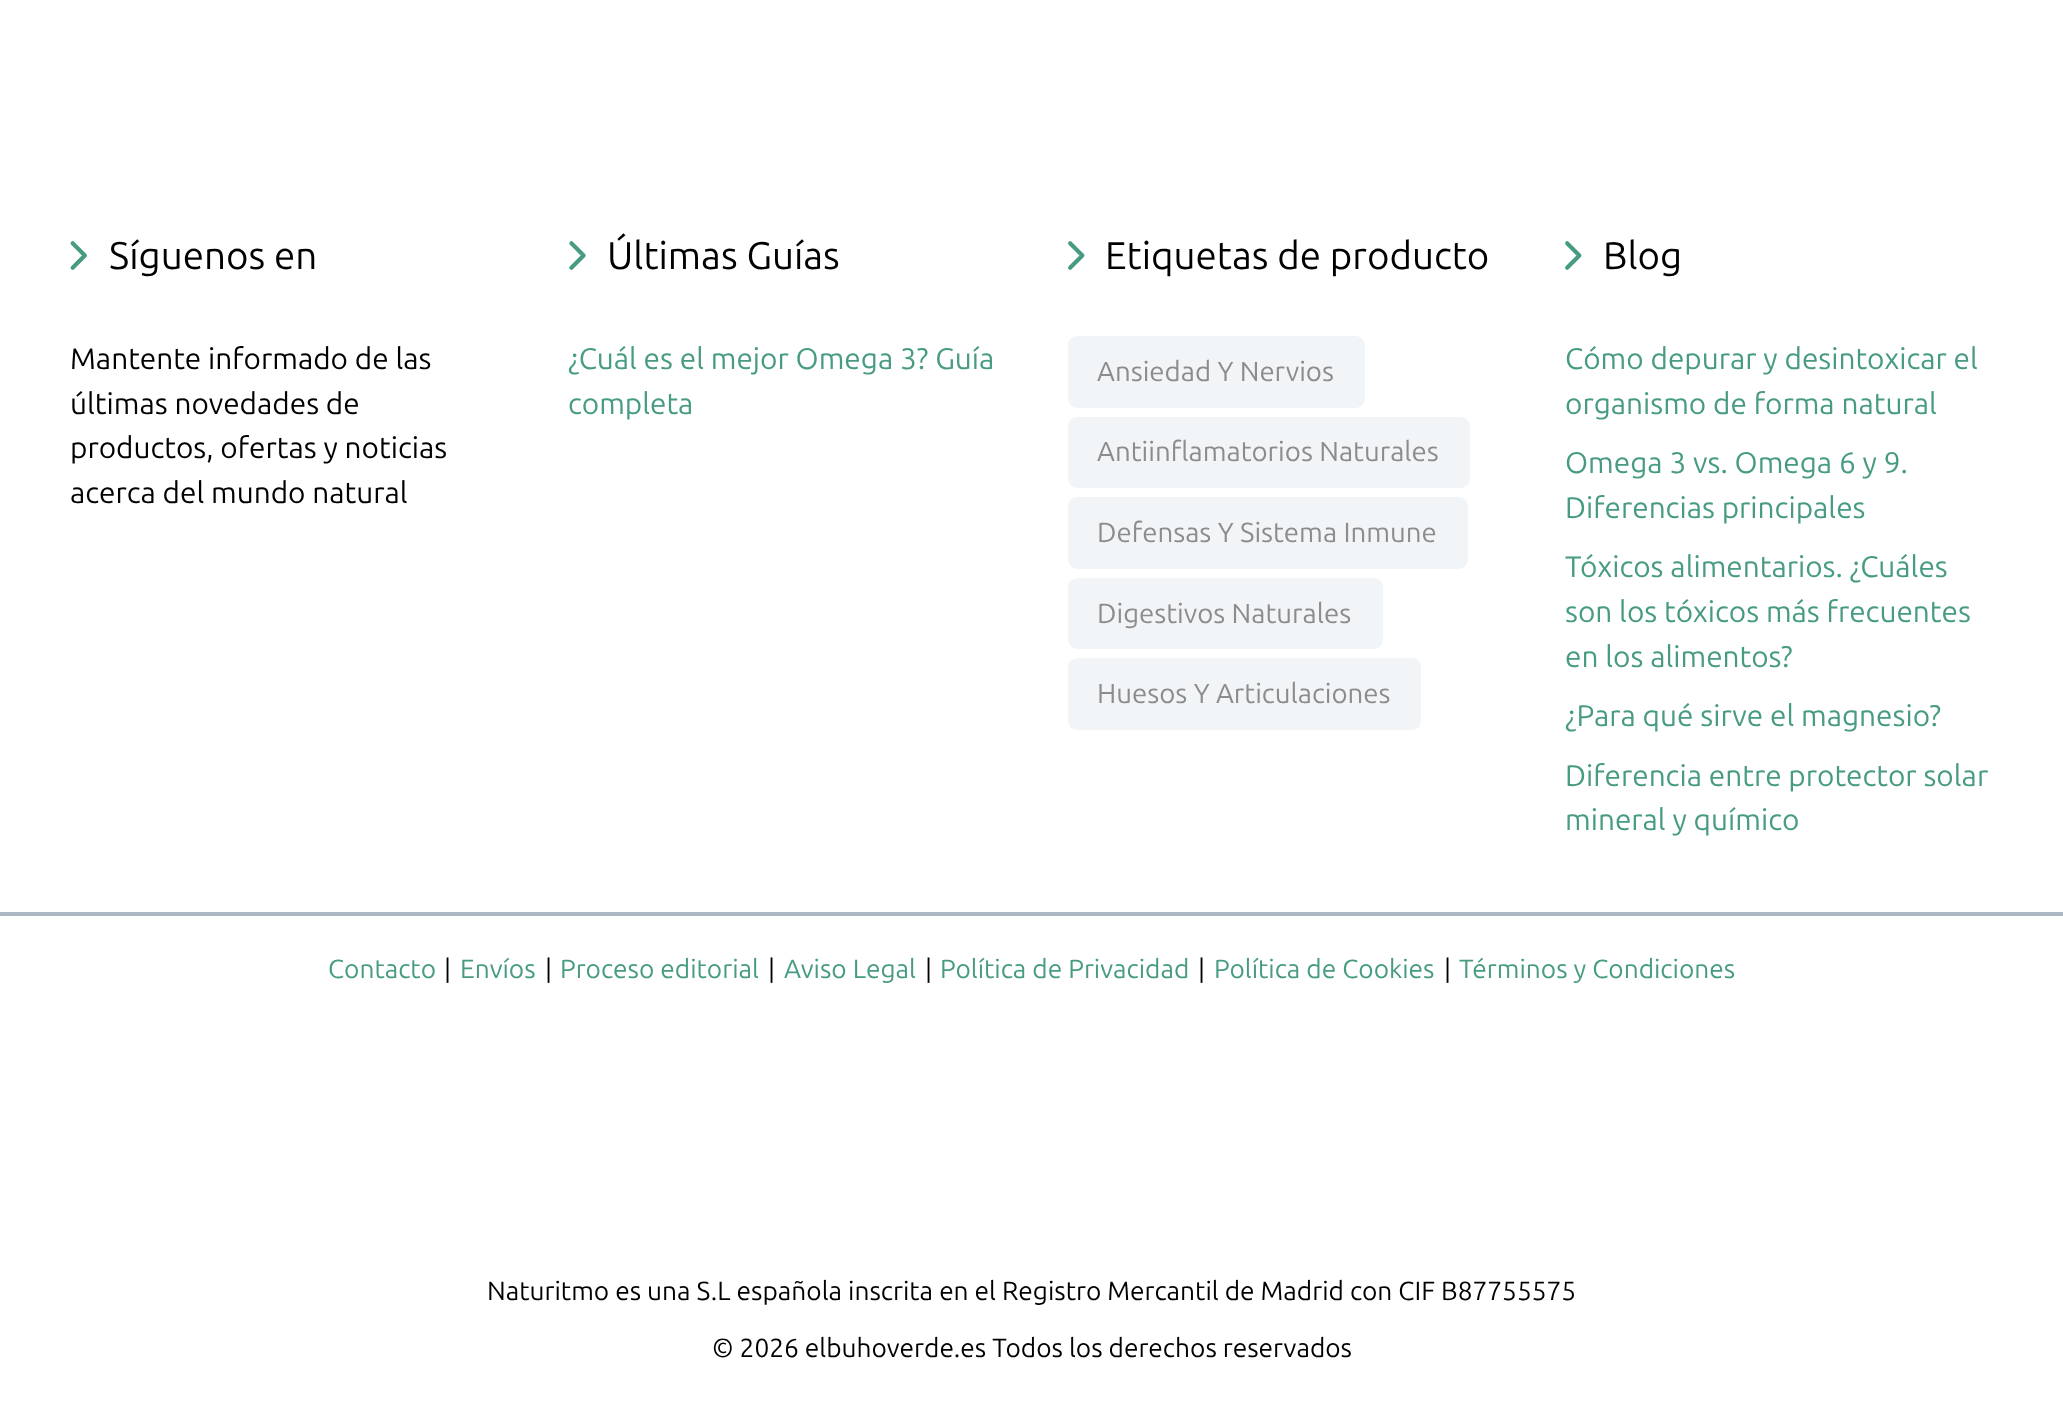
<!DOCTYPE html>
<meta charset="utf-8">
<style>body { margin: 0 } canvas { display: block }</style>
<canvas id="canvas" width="2063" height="1402"></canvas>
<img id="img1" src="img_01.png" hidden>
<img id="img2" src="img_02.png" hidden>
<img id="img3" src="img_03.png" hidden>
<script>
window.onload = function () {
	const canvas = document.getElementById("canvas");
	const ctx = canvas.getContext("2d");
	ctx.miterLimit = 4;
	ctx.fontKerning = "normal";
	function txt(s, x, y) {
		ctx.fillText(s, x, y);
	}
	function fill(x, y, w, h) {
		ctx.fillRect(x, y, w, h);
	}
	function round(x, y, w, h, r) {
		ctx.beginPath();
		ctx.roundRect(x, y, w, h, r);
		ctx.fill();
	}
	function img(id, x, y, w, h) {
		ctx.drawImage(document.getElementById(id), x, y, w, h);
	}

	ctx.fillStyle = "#FFFFFF";
	fill(0, 0, 2063, 1402);
	img("img1", 70, 241, 17, 29);
	img("img2", 569, 241, 17, 29);
	img("img3", 1068, 241, 17, 29);
	ctx.fillStyle = "#F2F5F8";
	round(1068, 336, 297, 72, 9);
	round(1068, 417, 402, 71, 9);
	round(1068, 497, 400, 72, 9);
	round(1068, 578, 315, 71, 9);
	round(1068, 658, 353, 72, 9);
	img("img3", 1565, 241, 17, 29);
	ctx.fillStyle = "#ABB8C3";
	fill(0, 912, 2063, 4);
	ctx.font = "38.5px Ubuntu";
	ctx.fillStyle = "#000000";
	txt("Síguenos en", 109, 269);
	ctx.font = "29.75px Ubuntu";
	txt("Mantente informado de las", 70, 369);
	txt("últimas novedades de", 70, 414);
	txt("productos, ofertas y noticias", 70, 458);
	txt("acerca del mundo natural", 70, 503);
	ctx.font = "38.5px Ubuntu";
	txt("Últimas Guías", 607, 269);
	ctx.font = "29.75px Ubuntu";
	ctx.fillStyle = "#479B83";
	txt("¿Cuál es el mejor Omega 3? Guía", 568, 369);
	txt("completa", 568, 414);
	ctx.font = "38.5px Ubuntu";
	ctx.fillStyle = "#000000";
	txt("Etiquetas de producto", 1105, 269);
	ctx.font = "27.6px Ubuntu";
	ctx.fillStyle = "#8C8C8C";
	txt("Ansiedad Y Nervios", 1097, 381);
	txt("Antiinflamatorios Naturales", 1097, 461);
	txt("Defensas Y Sistema Inmune", 1097, 542);
	txt("Digestivos Naturales", 1097, 623);
	txt("Huesos Y Articulaciones", 1097, 703);
	ctx.font = "38.5px Ubuntu";
	ctx.fillStyle = "#000000";
	txt("Blog", 1603, 269);
	ctx.font = "29.75px Ubuntu";
	ctx.fillStyle = "#479B83";
	txt("Cómo depurar y desintoxicar el", 1565, 369);
	txt("organismo de forma natural", 1565, 414);
	txt("Omega 3 vs. Omega 6 y 9.", 1565, 473);
	txt("Diferencias principales", 1565, 518);
	txt("Tóxicos alimentarios. ¿Cuáles", 1565, 577);
	txt("son los tóxicos más frecuentes", 1565, 622);
	txt("en los alimentos?", 1565, 667);
	txt("¿Para qué sirve el magnesio?", 1565, 726);
	txt("Diferencia entre protector solar", 1565, 786);
	txt("mineral y químico", 1565, 830);
	ctx.font = "26.25px Ubuntu";
	txt("Contacto", 328, 978);
	ctx.fillStyle = "#000000";
	txt("|", 444, 978);
	ctx.fillStyle = "#479B83";
	txt("Envíos", 460, 978);
	ctx.fillStyle = "#000000";
	txt("|", 545, 978);
	ctx.fillStyle = "#479B83";
	txt("Proceso editorial", 560, 978);
	ctx.fillStyle = "#000000";
	txt("|", 768, 978);
	ctx.fillStyle = "#479B83";
	txt("Aviso Legal", 784, 978);
	ctx.fillStyle = "#000000";
	txt("|", 925, 978);
	ctx.fillStyle = "#479B83";
	txt("Política de Privacidad", 940, 978);
	ctx.fillStyle = "#000000";
	txt("|", 1198, 978);
	ctx.fillStyle = "#479B83";
	txt("Política de Cookies", 1214, 978);
	ctx.fillStyle = "#000000";
	txt("|", 1444, 978);
	ctx.fillStyle = "#479B83";
	txt("Términos y Condiciones", 1459, 978);
	ctx.fillStyle = "#000000";
	txt("Naturitmo es una S.L española inscrita en el Registro Mercantil de Madrid con CIF B87755575", 487, 1300);
	txt("© 2026 elbuhoverde.es Todos los derechos reservados", 712, 1357);
};
</script>
